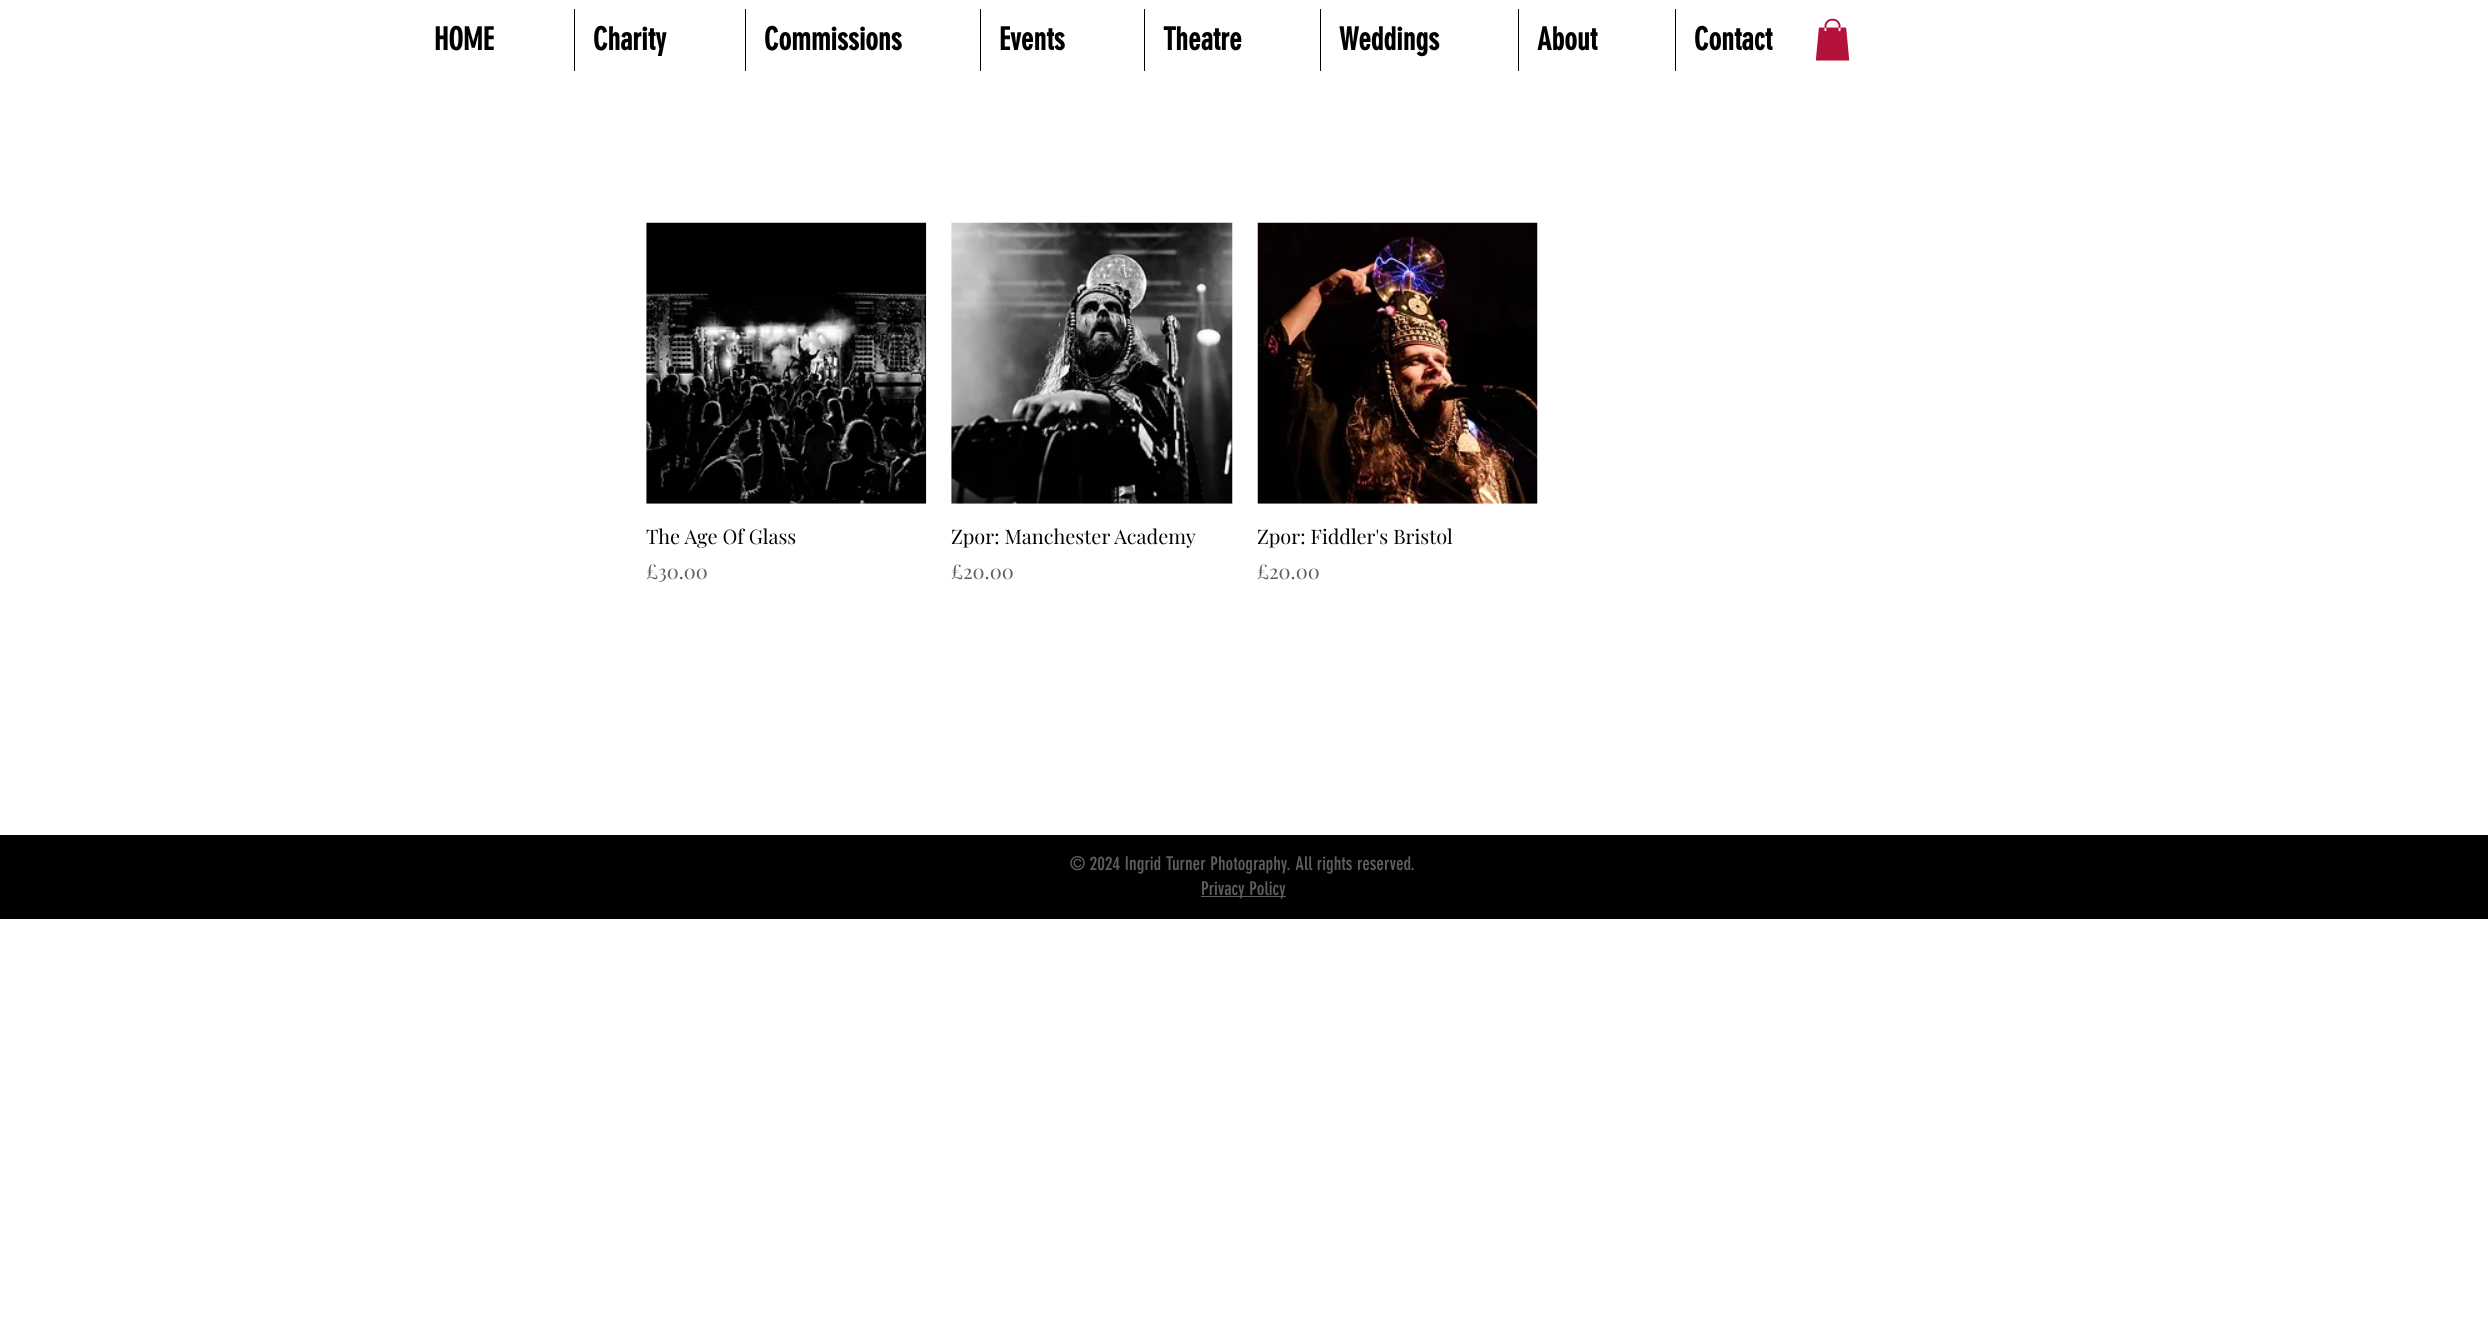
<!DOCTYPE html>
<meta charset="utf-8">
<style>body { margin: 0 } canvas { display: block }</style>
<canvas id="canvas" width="2488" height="1336"></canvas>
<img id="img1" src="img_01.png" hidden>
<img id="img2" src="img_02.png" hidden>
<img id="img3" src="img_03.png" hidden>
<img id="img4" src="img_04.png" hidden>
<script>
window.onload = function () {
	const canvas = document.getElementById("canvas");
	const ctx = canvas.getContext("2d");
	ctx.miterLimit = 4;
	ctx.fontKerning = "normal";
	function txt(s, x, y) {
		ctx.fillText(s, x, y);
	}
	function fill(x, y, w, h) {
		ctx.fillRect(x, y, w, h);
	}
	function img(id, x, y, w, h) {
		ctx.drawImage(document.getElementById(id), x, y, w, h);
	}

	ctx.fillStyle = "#FFFFFF";
	fill(0, 0, 2488, 1336);
	ctx.fillStyle = "#000000";
	fill(574, 9, 1, 62);
	fill(745, 9, 1, 62);
	fill(980, 9, 1, 62);
	fill(1144, 9, 1, 62);
	fill(1320, 9, 1, 62);
	fill(1518, 9, 1, 62);
	fill(1675, 9, 1, 62);
	img("img1", 1815, 18, 35, 43);
	img("img2", 646, 222, 281, 282);
	img("img3", 951, 222, 282, 282);
	img("img4", 1257, 222, 281, 282);
	fill(0, 835, 2488, 84);
	ctx.fillStyle = "#605E5E";
	fill(1201, 896, 85, 1);
	ctx.font = "bold 31.25px 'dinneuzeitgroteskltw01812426'";
	ctx.fillStyle = "#000000";
	txt("HOME", 434, 50);
	txt("Charity", 593, 50);
	txt("Commissions", 764, 50);
	txt("Events", 999, 50);
	txt("Theatre", 1163, 50);
	txt("Weddings", 1339, 50);
	txt("About", 1537, 50);
	txt("Contact", 1694, 50);
	ctx.font = "20px Playfair Display";
	txt("The Age Of Glass", 646, 544);
	ctx.fillStyle = "#605E5E";
	txt("£30.00", 646, 579);
	ctx.fillStyle = "#000000";
	txt("Zpor: Manchester Academy", 951, 544);
	ctx.fillStyle = "#605E5E";
	txt("£20.00", 951, 579);
	ctx.fillStyle = "#000000";
	txt("Zpor: Fiddler's Bristol", 1257, 544);
	ctx.fillStyle = "#605E5E";
	txt("£20.00", 1257, 579);
	ctx.font = "18.75px 'dinneuzeitgroteskltw01812426'";
	txt("© 2024 Ingrid Turner Photography. All rights reserved.", 1070, 870);
	txt("Privacy Policy", 1201, 895);
};
</script>
